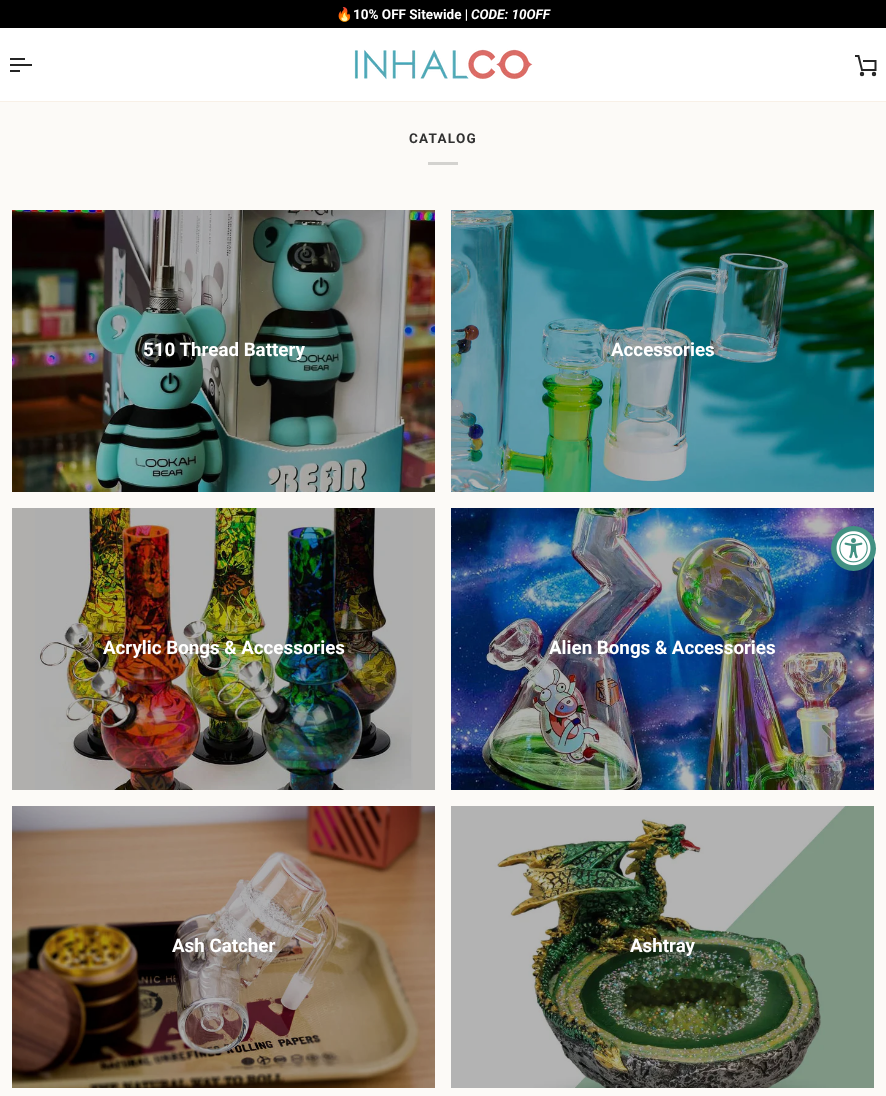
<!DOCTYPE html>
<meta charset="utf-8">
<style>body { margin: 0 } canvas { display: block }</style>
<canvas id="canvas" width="886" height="1096"></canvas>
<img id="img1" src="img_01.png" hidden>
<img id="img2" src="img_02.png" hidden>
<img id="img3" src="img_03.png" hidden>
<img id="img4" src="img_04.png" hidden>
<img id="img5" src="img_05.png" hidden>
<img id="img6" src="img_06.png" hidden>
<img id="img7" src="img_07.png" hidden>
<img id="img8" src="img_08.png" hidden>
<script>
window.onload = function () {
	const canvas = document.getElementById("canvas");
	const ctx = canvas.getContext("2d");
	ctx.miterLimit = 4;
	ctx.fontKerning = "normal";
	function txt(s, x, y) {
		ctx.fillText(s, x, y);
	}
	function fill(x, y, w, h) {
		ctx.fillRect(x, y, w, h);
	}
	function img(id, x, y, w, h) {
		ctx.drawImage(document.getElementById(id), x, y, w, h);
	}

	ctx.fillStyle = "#FFFFFF";
	fill(0, 0, 886, 1096);
	ctx.fillStyle = "#F8F0E7";
	fill(0, 101, 886, 1);
	ctx.fillStyle = "#000000";
	fill(0, 0, 886, 28);
	ctx.beginPath();
	ctx.moveTo(24, 59);
	ctx.lineTo(11, 59);
	ctx.moveTo(31, 65);
	ctx.lineTo(11, 65);
	ctx.moveTo(19, 71);
	ctx.lineTo(11, 71);
	ctx.strokeStyle = "#252525";
	ctx.lineWidth = 2;
	ctx.lineCap = "square";
	ctx.stroke();
	img("img1", 354, 49, 179, 31);
	ctx.beginPath();
	ctx.moveTo(855, 56);
	ctx.lineTo(858.5, 56);
	ctx.lineTo(862, 70);
	ctx.lineTo(875.5, 70);
	ctx.lineTo(875.5, 61);
	ctx.lineTo(863, 61);
	ctx.lineCap = "butt";
	ctx.stroke();
	ctx.beginPath();
	ctx.arc(862, 74, 1.2, 0, Math.PI * 2);
	ctx.stroke();
	ctx.beginPath();
	ctx.arc(874, 74, 1.2, 0, Math.PI * 2);
	ctx.stroke();
	ctx.fillStyle = "#FCFAF7";
	fill(0, 102, 886, 994);
	ctx.fillStyle = "#B0AFAD";
	fill(12, 508, 423, 282);
	ctx.fillStyle = "#D3D2CF";
	fill(428, 162, 30, 3);
	img("img2", 12, 210, 423, 282);
	img("img3", 451, 210, 423, 282);
	img("img4", 35, 508, 378, 282);
	img("img5", 451, 508, 423, 282);
	img("img6", 12, 806, 423, 282);
	img("img7", 451, 806, 423, 282);
	ctx.fillStyle = "#429182";
	ctx.beginPath();
	ctx.arc(853.5, 548.5, 22.5, 0, Math.PI * 2);
	ctx.fill();
	img("img8", 836, 531, 35, 35);
	ctx.font = "bold 13.5px Noto Color Emoji";
	ctx.fillStyle = "#FFFFFF";
	txt("🔥", 336, 19);
	ctx.font = "bold 13.5px Roboto";
	txt("10% OFF Sitewide |", 353, 19);
	ctx.font = "italic bold 13.5px Roboto";
	txt("CODE: 10OFF", 471, 19);
	ctx.letterSpacing = "1.25px";
	ctx.font = "bold 13.5px Roboto";
	ctx.fillStyle = "#313131";
	txt("CATALOG", 409, 143);
	ctx.letterSpacing = "0px";
	ctx.font = "bold 18.75px Roboto";
	ctx.fillStyle = "#FFFFFF";
	txt("510 Thread Battery", 143, 356);
	txt("Accessories", 611, 356);
	txt("Acrylic Bongs & Accessories", 103, 654);
	txt("Alien Bongs & Accessories", 549, 654);
	txt("Ash Catcher", 172, 952);
	txt("Ashtray", 630, 952);
};
</script>
